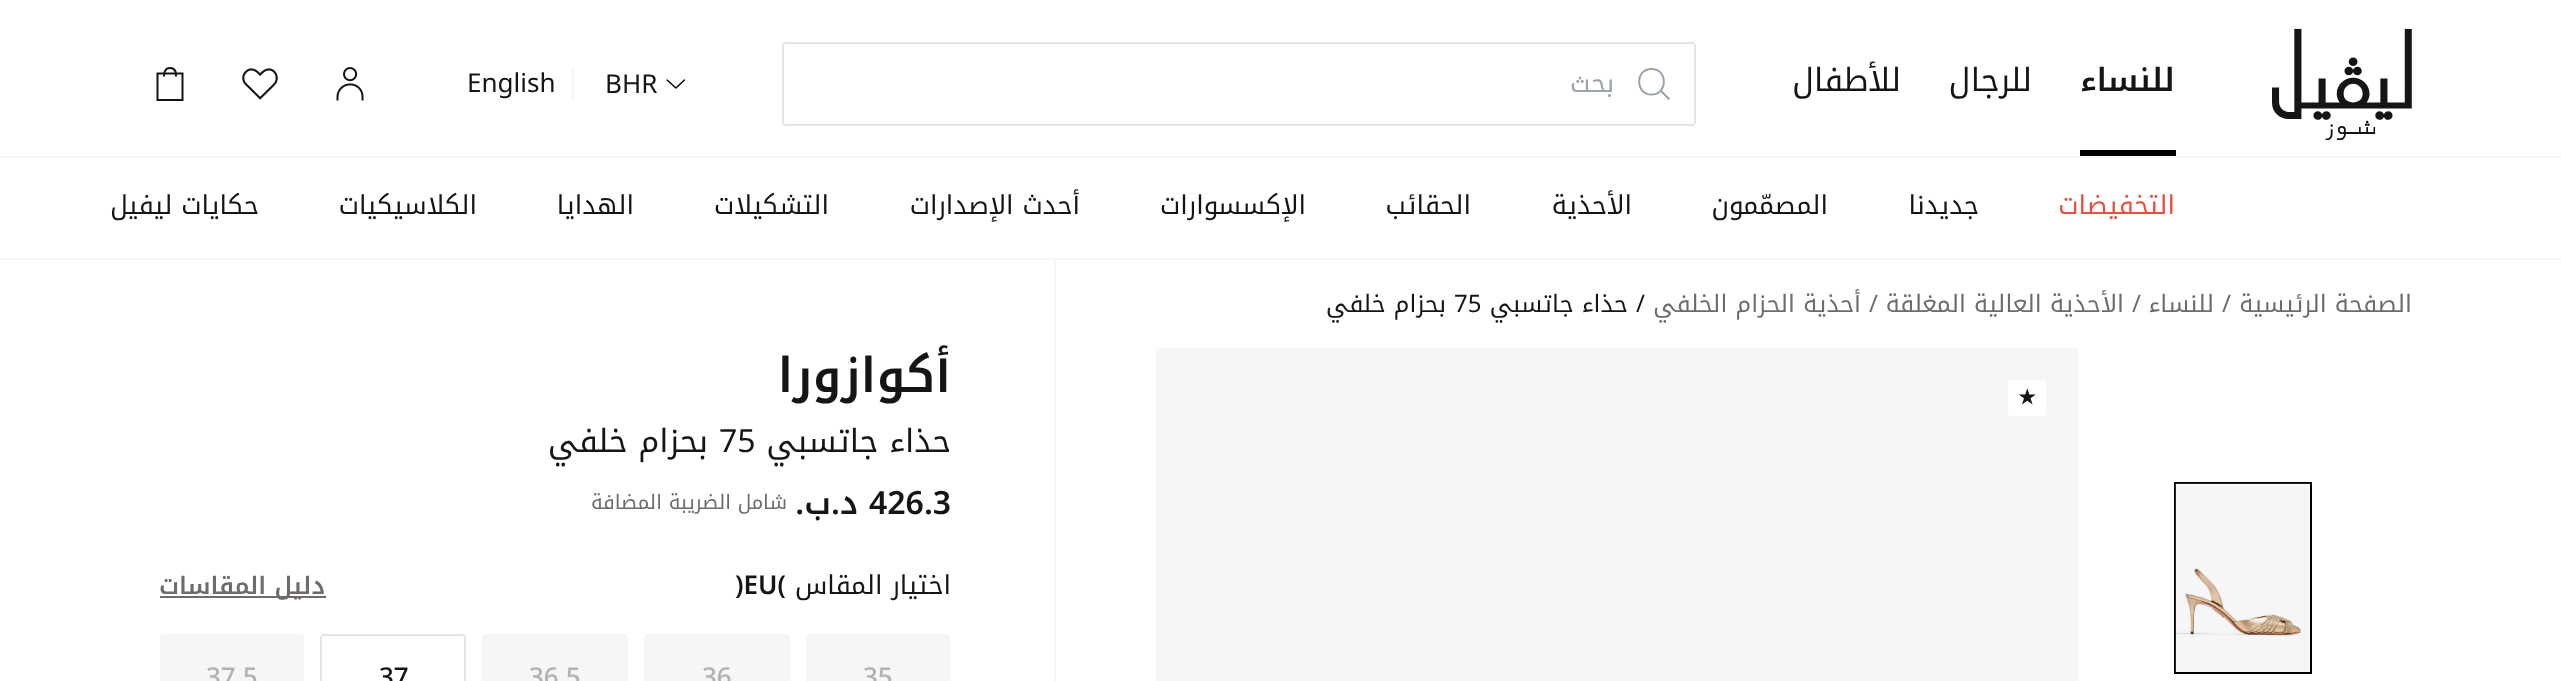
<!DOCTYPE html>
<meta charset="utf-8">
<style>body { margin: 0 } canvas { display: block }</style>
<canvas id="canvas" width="2561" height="681"></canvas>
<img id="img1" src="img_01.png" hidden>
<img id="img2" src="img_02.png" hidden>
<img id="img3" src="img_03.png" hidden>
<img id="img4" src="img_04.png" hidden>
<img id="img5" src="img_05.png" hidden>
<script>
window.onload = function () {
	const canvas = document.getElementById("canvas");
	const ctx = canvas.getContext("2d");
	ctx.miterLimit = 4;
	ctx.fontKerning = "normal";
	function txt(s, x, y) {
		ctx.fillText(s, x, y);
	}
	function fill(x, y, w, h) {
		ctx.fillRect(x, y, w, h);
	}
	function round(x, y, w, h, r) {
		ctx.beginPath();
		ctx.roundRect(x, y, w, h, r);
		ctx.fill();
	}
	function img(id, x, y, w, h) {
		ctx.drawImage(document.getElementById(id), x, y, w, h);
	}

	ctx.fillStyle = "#FFFFFF";
	fill(0, 0, 2561, 681);
	img("img1", 2272, 28, 140, 112);
	ctx.fillStyle = "#000000";
	fill(2080, 150, 96, 6);
	ctx.fillStyle = "#F6F6F4";
	fill(0, 156, 2561, 2);
	fill(0, 258, 2561, 2);
	ctx.beginPath();
	ctx.roundRect(783, 43, 912, 82, 3);
	ctx.strokeStyle = "#E4E4E0";
	ctx.lineWidth = 2;
	ctx.stroke();
	ctx.beginPath();
	ctx.moveTo(1651.5, 94.5);
	ctx.bezierCurveTo(1668, 94.5, 1668, 69, 1651.5, 69);
	ctx.bezierCurveTo(1635, 69, 1635, 94.5, 1651.5, 94.5);
	ctx.closePath();
	ctx.moveTo(1660.5, 90.5);
	ctx.lineTo(1669.5, 99.5);
	ctx.strokeStyle = "#9CA3AF";
	ctx.lineWidth = 1.9;
	ctx.stroke();
	img("img2", 666, 79, 20, 10);
	fill(572, 68, 2, 32);
	img("img3", 336, 67, 28, 34);
	img("img4", 242, 68, 36, 32);
	ctx.beginPath();
	ctx.moveTo(176, 76.5);
	ctx.bezierCurveTo(176, 75, 176, 73, 175.5, 71.5);
	ctx.bezierCurveTo(173.5, 67, 167, 67, 165, 71);
	ctx.bezierCurveTo(164, 72.5, 164, 74.5, 164, 76.5);
	ctx.moveTo(157.5, 100);
	ctx.lineTo(182.5, 100);
	ctx.lineTo(182.5, 73.5);
	ctx.lineTo(157.5, 73.5);
	ctx.closePath();
	ctx.strokeStyle = "#161515";
	ctx.lineWidth = 2;
	ctx.stroke();
	fill(1054, 260, 2, 421);
	ctx.fillStyle = "#F6F6F6";
	fill(1156, 348, 922, 333);
	ctx.fillStyle = "#FFFFFF";
	round(2008, 380, 38, 36, 4);
	ctx.strokeStyle = "#000000";
	ctx.strokeRect(2175, 483, 136, 190);
	img("img5", 2175, 483, 135, 189);
	ctx.fillStyle = "#706B6B";
	fill(160, 596, 166, 2);
	ctx.fillStyle = "#F6F6F4";
	round(806, 634, 144, 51, 4);
	round(644, 634, 146, 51, 4);
	round(482, 634, 146, 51, 4);
	ctx.beginPath();
	ctx.roundRect(321, 635, 144, 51, 3);
	ctx.strokeStyle = "#E4E4E0";
	ctx.stroke();
	round(160, 634, 144, 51, 4);
	ctx.direction = "rtl";
	ctx.font = "32px Noto Kufi Arabic";
	ctx.fillStyle = "#161515";
	txt("للأطفال", 1901, 91);
	ctx.font = "600 32px Noto Kufi Arabic";
	txt("للنساء", 2175, 91);
	ctx.font = "26px Noto Kufi Arabic";
	ctx.fillStyle = "#EB4E3D";
	txt("التخفيضات", 2175, 214);
	ctx.fillStyle = "#161515";
	txt("جديدنا", 1979, 214);
	txt("المصمّمون", 1828, 214);
	txt("الأحذية", 1632, 214);
	txt("الحقائب", 1471, 214);
	txt("الإكسسوارات", 1306, 214);
	txt("أحدث الإصدارات", 1080, 214);
	txt("التشكيلات", 829, 214);
	txt("الهدايا", 634, 214);
	txt("الكلاسيكيات", 477, 214);
	txt("حكايات ليفيل", 259, 214);
	ctx.font = "32px Noto Kufi Arabic";
	txt("للرجال", 2032, 91);
	ctx.font = "26px Noto Kufi Arabic";
	ctx.fillStyle = "#9CA3AF";
	txt("بحث", 1614, 92);
	ctx.direction = "ltr";
	ctx.fillStyle = "#161515";
	txt("BHR", 605, 93);
	txt("English", 467, 92);
	ctx.direction = "rtl";
	ctx.font = "24px Noto Kufi Arabic";
	ctx.fillStyle = "#706B6B";
	txt("الصفحة الرئيسية", 2412, 312);
	ctx.direction = "ltr";
	txt("/", 2222, 312);
	ctx.direction = "rtl";
	txt("للنساء", 2214, 312);
	ctx.direction = "ltr";
	txt("/", 2132, 312);
	ctx.direction = "rtl";
	txt("الأحذية العالية المغلقة", 2124, 312);
	ctx.direction = "ltr";
	txt("/", 1869, 312);
	ctx.direction = "rtl";
	txt("أحذية الحزام الخلفي", 1861, 312);
	ctx.direction = "ltr";
	ctx.fillStyle = "#161515";
	txt("/", 1636, 312);
	ctx.direction = "rtl";
	txt("حذاء جاتسبي", 1628, 312);
	ctx.direction = "ltr";
	txt("75", 1454, 312);
	ctx.direction = "rtl";
	txt("بحزام خلفي", 1446, 312);
	ctx.direction = "ltr";
	ctx.font = "bold 20px DejaVu Sans";
	txt("★", 2018, 404);
	ctx.direction = "rtl";
	ctx.font = "600 48px Noto Kufi Arabic";
	txt("أكوازورا", 951, 392);
	ctx.font = "32px Noto Kufi Arabic";
	txt("حذاء جاتسبي", 951, 452);
	ctx.direction = "ltr";
	txt("75", 719, 452);
	ctx.direction = "rtl";
	txt("بحزام خلفي", 708, 452);
	ctx.direction = "ltr";
	ctx.font = "600 32px Noto Kufi Arabic";
	txt("426.3", 869, 514);
	ctx.direction = "rtl";
	txt("د.ب.", 858, 514);
	ctx.font = "20px Noto Kufi Arabic";
	ctx.fillStyle = "#706B6B";
	txt("شامل الضريبة المضافة", 787, 509);
	ctx.font = "26px Noto Kufi Arabic";
	ctx.fillStyle = "#161515";
	txt("اختيار المقاس", 951, 594);
	ctx.direction = "ltr";
	ctx.font = "600 26px Noto Kufi Arabic";
	txt(")EU(", 735, 594);
	ctx.direction = "rtl";
	ctx.font = "600 24px Noto Kufi Arabic";
	ctx.fillStyle = "#706B6B";
	txt("دليل المقاسات", 325, 594);
	ctx.direction = "ltr";
	ctx.font = "500 26px Noto Kufi Arabic";
	ctx.fillStyle = "#B3B1B1";
	txt("35", 863, 686);
	txt("36", 702, 686);
	txt("36.5", 529, 686);
	ctx.fillStyle = "#161515";
	txt("37", 379, 686);
	ctx.fillStyle = "#B3B1B1";
	txt("37.5", 206, 686);
};
</script>
